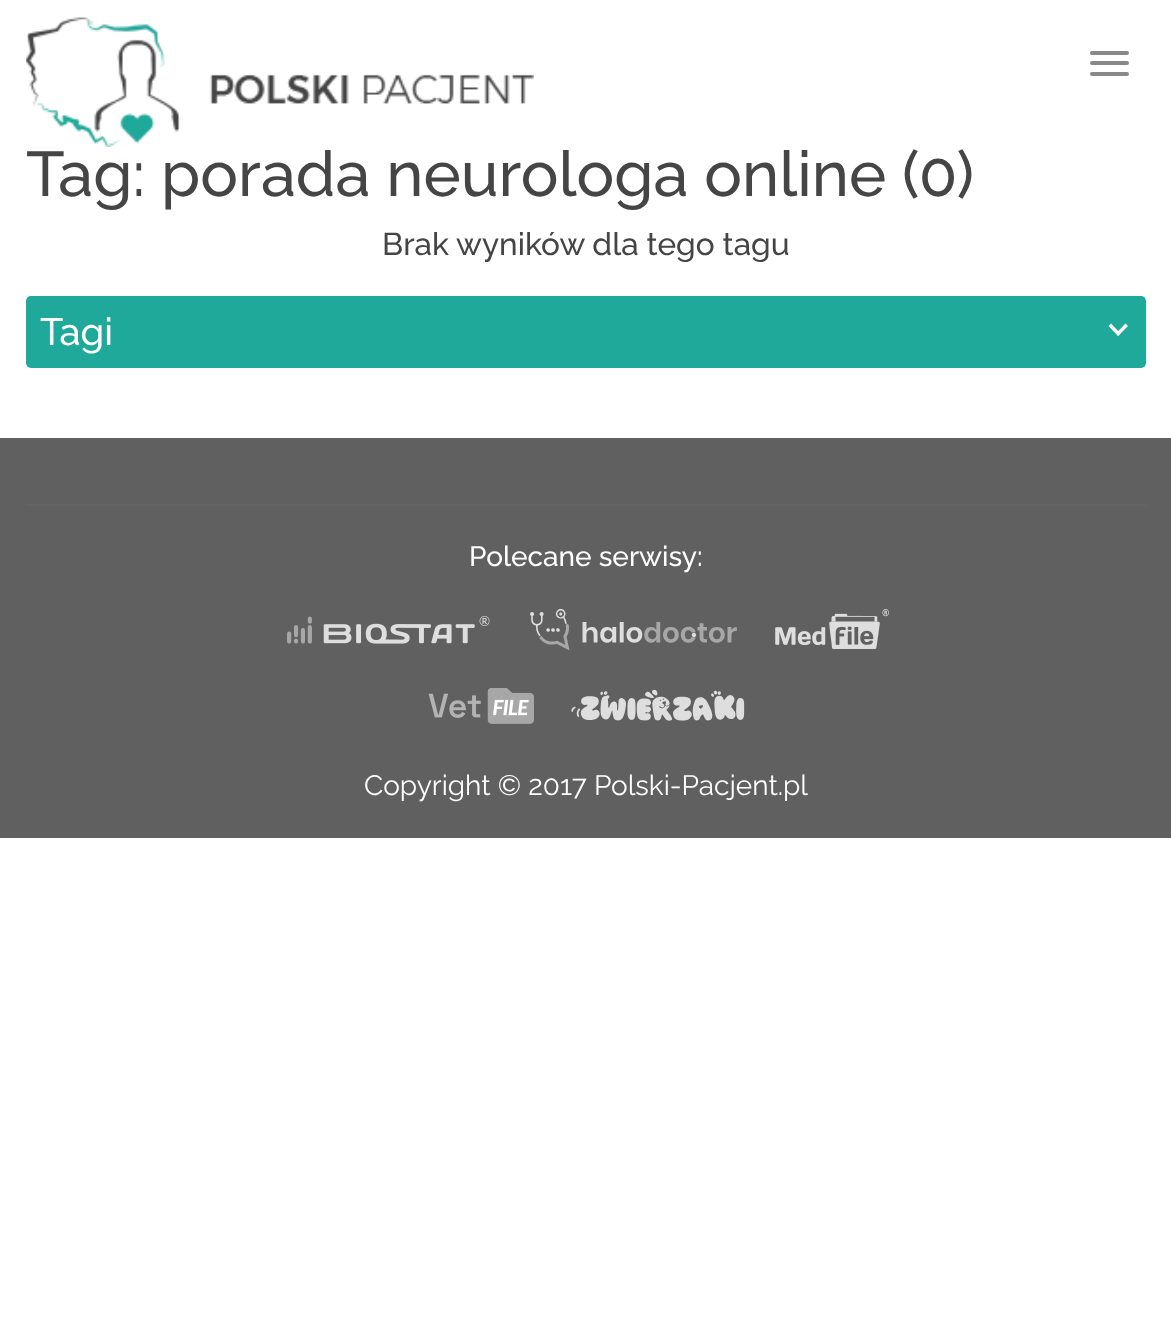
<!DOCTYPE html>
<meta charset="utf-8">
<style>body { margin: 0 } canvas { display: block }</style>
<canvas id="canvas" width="1171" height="1344"></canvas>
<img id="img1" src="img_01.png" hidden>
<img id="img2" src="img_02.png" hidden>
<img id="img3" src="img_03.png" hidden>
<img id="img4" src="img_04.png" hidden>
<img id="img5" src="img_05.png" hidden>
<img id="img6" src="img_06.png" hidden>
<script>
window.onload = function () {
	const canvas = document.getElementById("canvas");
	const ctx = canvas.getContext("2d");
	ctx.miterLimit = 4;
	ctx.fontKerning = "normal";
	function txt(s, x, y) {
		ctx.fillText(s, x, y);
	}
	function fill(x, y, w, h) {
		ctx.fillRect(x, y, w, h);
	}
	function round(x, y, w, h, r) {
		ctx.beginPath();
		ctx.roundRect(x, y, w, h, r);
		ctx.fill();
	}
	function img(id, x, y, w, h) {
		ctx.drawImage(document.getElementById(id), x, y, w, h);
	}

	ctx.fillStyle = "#FFFFFF";
	fill(0, 0, 1171, 1344);
	img("img1", 26, 17, 508, 130);
	ctx.fillStyle = "#888888";
	round(1090, 51, 39, 4, 2);
	round(1090, 61, 39, 4, 2);
	round(1090, 72, 39, 4, 2);
	ctx.fillStyle = "#1FA99B";
	round(26, 296, 1120, 72, 5);
	ctx.fillStyle = "#FFFFFF";
	ctx.beginPath();
	ctx.moveTo(1125.5, 323.5);
	ctx.lineTo(1128, 326);
	ctx.lineTo(1118, 336);
	ctx.lineTo(1116, 333.5);
	ctx.closePath();
	ctx.fill();
	ctx.beginPath();
	ctx.moveTo(1111, 323.5);
	ctx.lineTo(1120.5, 333.5);
	ctx.lineTo(1118, 336);
	ctx.lineTo(1108.5, 326);
	ctx.closePath();
	ctx.fill();
	ctx.fillStyle = "#606060";
	fill(0, 438, 1171, 400);
	ctx.fillStyle = "#646464";
	fill(26, 504, 1120, 2);
	img("img2", 287, 616, 203, 28);
	img("img3", 530, 609, 207, 42);
	img("img4", 775, 609, 114, 40);
	img("img5", 428, 688, 106, 36);
	img("img6", 571, 690, 174, 31);
	ctx.font = "500 63px Raleway";
	ctx.fillStyle = "#454545";
	txt("Tag: porada neurologa online (0)", 26, 196);
	ctx.font = "500 31.5px Raleway";
	txt("Brak wyników dla tego tagu", 382, 255);
	ctx.font = "500 38px Raleway";
	ctx.fillStyle = "#FFFFFF";
	txt("Tagi", 40, 345);
	ctx.font = "500 28px Raleway";
	txt("Polecane serwisy:", 469, 566);
	ctx.font = "28px Raleway";
	txt("Copyright © 2017 Polski-Pacjent.pl", 364, 795);
};
</script>
